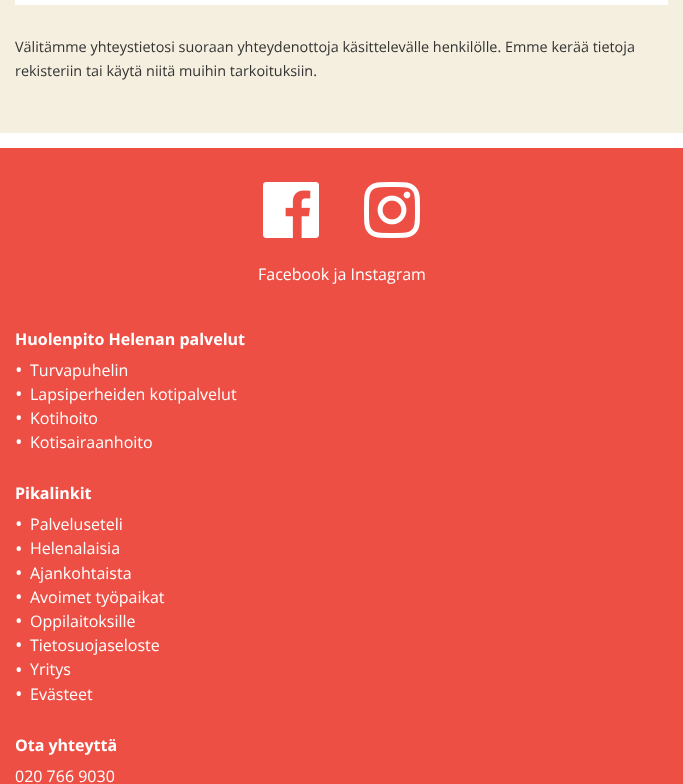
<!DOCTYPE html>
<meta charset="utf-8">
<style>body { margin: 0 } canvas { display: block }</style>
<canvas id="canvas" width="683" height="784"></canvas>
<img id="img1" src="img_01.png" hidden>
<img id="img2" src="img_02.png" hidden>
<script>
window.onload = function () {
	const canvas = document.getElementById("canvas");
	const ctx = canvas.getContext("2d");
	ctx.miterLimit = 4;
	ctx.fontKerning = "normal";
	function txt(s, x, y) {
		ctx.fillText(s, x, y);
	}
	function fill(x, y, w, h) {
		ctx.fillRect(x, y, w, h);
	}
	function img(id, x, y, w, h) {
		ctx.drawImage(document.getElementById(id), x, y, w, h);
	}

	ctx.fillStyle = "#FFFFFF";
	fill(0, 0, 683, 784);
	ctx.fillStyle = "#F5EFE0";
	fill(0, 0, 683, 133);
	ctx.fillStyle = "#FFFFFF";
	fill(15, 0, 653, 5);
	ctx.fillStyle = "#ED4F45";
	fill(0, 148, 683, 636);
	img("img1", 263, 182, 56, 56);
	img("img2", 364, 182, 56, 56);
	ctx.font = "14.4px Open Sans";
	ctx.fillStyle = "#333333";
	txt("Välitämme yhteystietosi suoraan yhteydenottoja käsittelevälle henkilölle. Emme kerää tietoja", 15, 52);
	txt("rekisteriin tai käytä niitä muihin tarkoituksiin.", 15, 76);
	ctx.font = "16px Open Sans";
	ctx.fillStyle = "#FFFFFF";
	txt("Facebook ja Instagram", 258, 280);
	ctx.font = "bold 16px Open Sans";
	txt("Huolenpito Helenan palvelut", 15, 345);
	ctx.font = "20px Open Sans";
	txt("•", 15, 377);
	ctx.font = "16px Open Sans";
	txt("Turvapuhelin", 30, 376);
	ctx.font = "20px Open Sans";
	txt("•", 15, 401);
	ctx.font = "16px Open Sans";
	txt("Lapsiperheiden kotipalvelut", 30, 400);
	ctx.font = "20px Open Sans";
	txt("•", 15, 425);
	ctx.font = "16px Open Sans";
	txt("Kotihoito", 30, 424);
	ctx.font = "20px Open Sans";
	txt("•", 15, 449);
	ctx.font = "16px Open Sans";
	txt("Kotisairaanhoito", 30, 448);
	ctx.font = "bold 16px Open Sans";
	txt("Pikalinkit", 15, 499);
	ctx.font = "20px Open Sans";
	txt("•", 15, 531);
	ctx.font = "16px Open Sans";
	txt("Palveluseteli", 30, 530);
	ctx.font = "20px Open Sans";
	txt("•", 15, 556);
	ctx.font = "16px Open Sans";
	txt("Helenalaisia", 30, 554);
	ctx.font = "20px Open Sans";
	txt("•", 15, 580);
	ctx.font = "16px Open Sans";
	txt("Ajankohtaista", 30, 579);
	ctx.font = "20px Open Sans";
	txt("•", 15, 604);
	ctx.font = "16px Open Sans";
	txt("Avoimet työpaikat", 30, 603);
	ctx.font = "20px Open Sans";
	txt("•", 15, 628);
	ctx.font = "16px Open Sans";
	txt("Oppilaitoksille", 30, 627);
	ctx.font = "20px Open Sans";
	txt("•", 15, 652);
	ctx.font = "16px Open Sans";
	txt("Tietosuojaseloste", 30, 651);
	ctx.font = "20px Open Sans";
	txt("•", 15, 677);
	ctx.font = "16px Open Sans";
	txt("Yritys", 30, 675);
	ctx.font = "20px Open Sans";
	txt("•", 15, 701);
	ctx.font = "16px Open Sans";
	txt("Evästeet", 30, 700);
	ctx.font = "bold 16px Open Sans";
	txt("Ota yhteyttä", 15, 751);
	ctx.font = "16px Open Sans";
	txt("020 766 9030", 15, 782);
};
</script>
